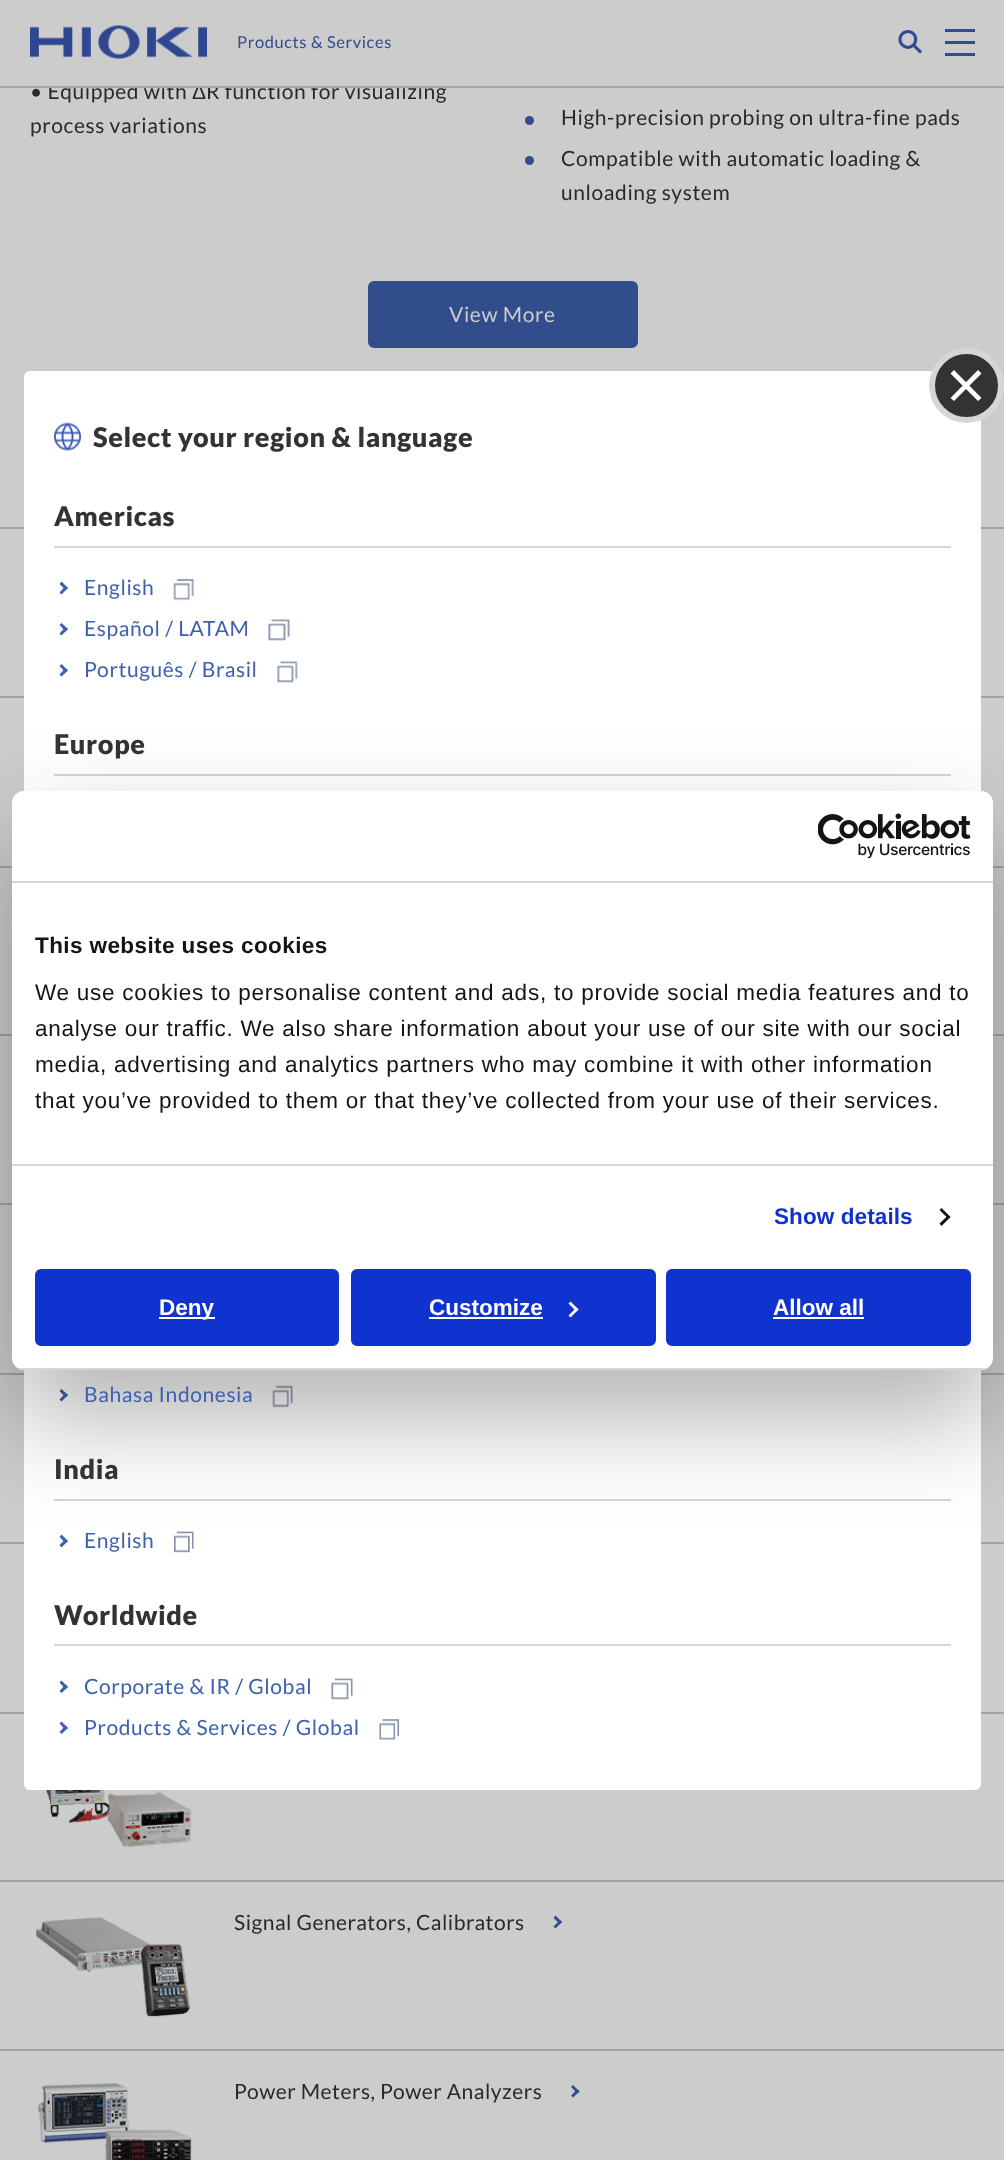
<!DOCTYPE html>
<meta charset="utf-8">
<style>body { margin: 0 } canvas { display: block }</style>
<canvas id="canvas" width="1004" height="2160"></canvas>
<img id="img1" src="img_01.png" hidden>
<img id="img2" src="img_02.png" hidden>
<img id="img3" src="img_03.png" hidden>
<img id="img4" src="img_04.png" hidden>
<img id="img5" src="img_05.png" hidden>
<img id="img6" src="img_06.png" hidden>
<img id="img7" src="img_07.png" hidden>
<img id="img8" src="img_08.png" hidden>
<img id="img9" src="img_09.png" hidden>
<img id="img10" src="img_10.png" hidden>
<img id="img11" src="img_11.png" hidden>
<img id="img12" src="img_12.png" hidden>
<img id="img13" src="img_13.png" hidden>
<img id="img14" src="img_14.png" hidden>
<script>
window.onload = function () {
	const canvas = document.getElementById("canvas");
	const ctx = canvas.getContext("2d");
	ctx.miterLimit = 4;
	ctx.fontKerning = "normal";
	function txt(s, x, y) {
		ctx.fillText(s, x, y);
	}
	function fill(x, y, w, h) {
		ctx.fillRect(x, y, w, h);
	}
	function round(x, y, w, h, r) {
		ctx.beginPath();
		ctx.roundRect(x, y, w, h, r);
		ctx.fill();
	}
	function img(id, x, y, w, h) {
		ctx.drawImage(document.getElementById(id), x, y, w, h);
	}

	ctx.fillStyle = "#CCCCCC";
	fill(0, 0, 1004, 2160);
	img("img1", 30, 25, 177, 34);
	img("img2", 898, 30, 25, 24);
	ctx.fillStyle = "#314D8C";
	fill(945, 29, 30, 3);
	fill(945, 41, 30, 3);
	fill(945, 53, 30, 3);
	ctx.beginPath();
	ctx.arc(529.5, 120.5, 4.5, 0, Math.PI * 2);
	ctx.fill();
	ctx.beginPath();
	ctx.arc(529.5, 160.5, 4.5, 0, Math.PI * 2);
	ctx.fill();
	ctx.beginPath();
	ctx.roundRect(369, 282, 268, 65, 5);
	ctx.fill();
	ctx.strokeStyle = "#314D8C";
	ctx.lineWidth = 2;
	ctx.stroke();
	ctx.fillStyle = "#A3A3A3";
	fill(0, 527, 1004, 2);
	fill(0, 696, 1004, 2);
	fill(0, 866, 1004, 2);
	fill(0, 1034, 1004, 2);
	fill(0, 1203, 1004, 2);
	fill(0, 1373, 1004, 2);
	fill(0, 1542, 1004, 2);
	fill(0, 1712, 1004, 2);
	fill(0, 1880, 1004, 2);
	img("img3", 44, 1790, 148, 57);
	fill(0, 2049, 1004, 2);
	img("img4", 35, 1917, 155, 100);
	ctx.fillStyle = "#314D8C";
	ctx.beginPath();
	ctx.moveTo(555.5, 1915.5);
	ctx.lineTo(562, 1922);
	ctx.lineTo(560, 1924);
	ctx.lineTo(553.5, 1918);
	ctx.closePath();
	ctx.fill();
	ctx.beginPath();
	ctx.moveTo(560, 1920);
	ctx.lineTo(562, 1922);
	ctx.lineTo(555.5, 1928.5);
	ctx.lineTo(553.5, 1926.5);
	ctx.closePath();
	ctx.fill();
	img("img5", 38, 2083, 154, 77);
	ctx.beginPath();
	ctx.moveTo(573, 2085);
	ctx.lineTo(579.5, 2091.5);
	ctx.lineTo(577.5, 2093.5);
	ctx.lineTo(571, 2087);
	ctx.closePath();
	ctx.fill();
	ctx.beginPath();
	ctx.moveTo(577.5, 2089);
	ctx.lineTo(579.5, 2091.5);
	ctx.lineTo(573, 2097.5);
	ctx.lineTo(571, 2095.5);
	ctx.closePath();
	ctx.fill();
	ctx.fillStyle = "#FFFFFF";
	round(24, 371, 957, 1419, 6);
	ctx.fillStyle = "#333333";
	ctx.beginPath();
	ctx.arc(966.5, 385.5, 34.5, 0, Math.PI * 2);
	ctx.fill();
	ctx.strokeStyle = "#D6D6D6";
	ctx.lineWidth = 6;
	ctx.stroke();
	ctx.fillStyle = "#FFFFFF";
	ctx.beginPath();
	ctx.moveTo(950.5, 398);
	ctx.lineTo(978, 370);
	ctx.lineTo(981.5, 373.5);
	ctx.lineTo(954, 401);
	ctx.closePath();
	ctx.fill();
	ctx.beginPath();
	ctx.moveTo(954, 370);
	ctx.lineTo(981.5, 398);
	ctx.lineTo(978, 401);
	ctx.lineTo(950.5, 373.5);
	ctx.closePath();
	ctx.fill();
	img("img6", 54, 422, 27, 29);
	ctx.fillStyle = "#D6D6D6";
	fill(54, 546, 897, 2);
	ctx.fillStyle = "#3D60AF";
	ctx.beginPath();
	ctx.moveTo(61.5, 581.5);
	ctx.lineTo(68, 588);
	ctx.lineTo(65.5, 590);
	ctx.lineTo(59.5, 584);
	ctx.closePath();
	ctx.fill();
	ctx.beginPath();
	ctx.moveTo(65.5, 586);
	ctx.lineTo(68, 588);
	ctx.lineTo(61.5, 594.5);
	ctx.lineTo(59.5, 592.5);
	ctx.closePath();
	ctx.fill();
	img("img7", 173, 579, 21, 22);
	ctx.beginPath();
	ctx.moveTo(61.5, 623);
	ctx.lineTo(68, 629);
	ctx.lineTo(65.5, 631.5);
	ctx.lineTo(59.5, 625);
	ctx.closePath();
	ctx.fill();
	ctx.beginPath();
	ctx.moveTo(65.5, 627);
	ctx.lineTo(68, 629);
	ctx.lineTo(61.5, 635.5);
	ctx.lineTo(59.5, 633.5);
	ctx.closePath();
	ctx.fill();
	img("img8", 268, 619, 22, 22);
	ctx.beginPath();
	ctx.moveTo(61.5, 664);
	ctx.lineTo(68, 670.5);
	ctx.lineTo(65.5, 672.5);
	ctx.lineTo(59.5, 666);
	ctx.closePath();
	ctx.fill();
	ctx.beginPath();
	ctx.moveTo(65.5, 668);
	ctx.lineTo(68, 670.5);
	ctx.lineTo(61.5, 676.5);
	ctx.lineTo(59.5, 674.5);
	ctx.closePath();
	ctx.fill();
	img("img9", 277, 661, 21, 22);
	ctx.fillStyle = "#D6D6D6";
	fill(54, 774, 897, 2);
	ctx.fillStyle = "#3D60AF";
	ctx.beginPath();
	ctx.moveTo(61.5, 1389);
	ctx.lineTo(68, 1395);
	ctx.lineTo(65.5, 1397.5);
	ctx.lineTo(59.5, 1391);
	ctx.closePath();
	ctx.fill();
	ctx.beginPath();
	ctx.moveTo(65.5, 1393);
	ctx.lineTo(68, 1395);
	ctx.lineTo(61.5, 1401.5);
	ctx.lineTo(59.5, 1399.5);
	ctx.closePath();
	ctx.fill();
	img("img10", 272, 1385, 21, 23);
	ctx.fillStyle = "#D6D6D6";
	fill(54, 1499, 897, 2);
	ctx.fillStyle = "#3D60AF";
	ctx.beginPath();
	ctx.moveTo(61.5, 1534.5);
	ctx.lineTo(68, 1541);
	ctx.lineTo(65.5, 1543);
	ctx.lineTo(59.5, 1537);
	ctx.closePath();
	ctx.fill();
	ctx.beginPath();
	ctx.moveTo(65.5, 1539);
	ctx.lineTo(68, 1541);
	ctx.lineTo(61.5, 1547.5);
	ctx.lineTo(59.5, 1545);
	ctx.closePath();
	ctx.fill();
	img("img11", 174, 1531, 20, 22);
	ctx.fillStyle = "#D6D6D6";
	fill(54, 1644, 897, 2);
	ctx.fillStyle = "#3D60AF";
	ctx.beginPath();
	ctx.moveTo(61.5, 1680.5);
	ctx.lineTo(68, 1687);
	ctx.lineTo(65.5, 1689);
	ctx.lineTo(59.5, 1682.5);
	ctx.closePath();
	ctx.fill();
	ctx.beginPath();
	ctx.moveTo(65.5, 1684.5);
	ctx.lineTo(68, 1687);
	ctx.lineTo(61.5, 1693);
	ctx.lineTo(59.5, 1691);
	ctx.closePath();
	ctx.fill();
	img("img12", 331, 1678, 22, 22);
	ctx.beginPath();
	ctx.moveTo(61.5, 1721.5);
	ctx.lineTo(68, 1728);
	ctx.lineTo(65.5, 1730);
	ctx.lineTo(59.5, 1723.5);
	ctx.closePath();
	ctx.fill();
	ctx.beginPath();
	ctx.moveTo(65.5, 1725.5);
	ctx.lineTo(68, 1728);
	ctx.lineTo(61.5, 1734);
	ctx.lineTo(59.5, 1732);
	ctx.closePath();
	ctx.fill();
	img("img13", 379, 1719, 20, 22);
	ctx.fillStyle = "rgba(0, 0, 0, 0.3)";
	ctx.filter = "blur(51px)";
	ctx.beginPath();
	ctx.roundRect(12, 839, 981, 579, 12);
	ctx.fill();
	ctx.filter = "none";
	ctx.fillStyle = "#FFFFFF";
	round(12, 791, 981, 579, 12);
	ctx.fillStyle = "#D6D6D6";
	fill(12, 881, 981, 2);
	img("img14", 818, 813, 153, 45);
	fill(12, 1164, 981, 2);
	ctx.fillStyle = "#141414";
	ctx.beginPath();
	ctx.moveTo(941.5, 1208);
	ctx.lineTo(950.5, 1217);
	ctx.lineTo(948.5, 1219);
	ctx.lineTo(939.5, 1210);
	ctx.closePath();
	ctx.fill();
	ctx.beginPath();
	ctx.moveTo(948.5, 1215);
	ctx.lineTo(950.5, 1217);
	ctx.lineTo(941.5, 1226);
	ctx.lineTo(939.5, 1223.5);
	ctx.closePath();
	ctx.fill();
	ctx.save();
	ctx.beginPath();
	ctx.roundRect(12, 791, 981, 579, 12);
	ctx.clip();
	ctx.fillStyle = "#D6D6D6";
	fill(12, 1368, 981, 2);
	ctx.restore();
	ctx.fillStyle = "#1032CF";
	ctx.beginPath();
	ctx.roundRect(36.5, 1270.5, 301, 74, 4.5);
	ctx.fill();
	ctx.strokeStyle = "#1032CF";
	ctx.lineWidth = 3;
	ctx.stroke();
	ctx.fillStyle = "#FFFFFF";
	fill(159, 1317, 56, 2);
	ctx.fillStyle = "#1032CF";
	ctx.beginPath();
	ctx.roundRect(352.5, 1270.5, 302, 74, 4.5);
	ctx.fill();
	ctx.stroke();
	ctx.fillStyle = "#FFFFFF";
	fill(429, 1317, 114, 2);
	ctx.beginPath();
	ctx.moveTo(570.5, 1301.5);
	ctx.lineTo(578.5, 1309.5);
	ctx.lineTo(576.5, 1311.5);
	ctx.lineTo(568.5, 1303.5);
	ctx.closePath();
	ctx.fill();
	ctx.beginPath();
	ctx.moveTo(576.5, 1307.5);
	ctx.lineTo(578.5, 1309.5);
	ctx.lineTo(570.5, 1317.5);
	ctx.lineTo(568.5, 1315.5);
	ctx.closePath();
	ctx.fill();
	ctx.fillStyle = "#1032CF";
	ctx.beginPath();
	ctx.roundRect(667.5, 1270.5, 302, 74, 4.5);
	ctx.fill();
	ctx.stroke();
	ctx.fillStyle = "#FFFFFF";
	fill(773, 1317, 91, 2);
	ctx.letterSpacing = "0.6px";
	ctx.font = "16.5px Lato";
	ctx.fillStyle = "#314D8C";
	txt("Products & Services", 237, 48);
	ctx.font = "21px Lato";
	ctx.fillStyle = "#292929";
	txt("• Equipped with", 30, 99);
	ctx.font = "21px Liberation Sans";
	txt("Δ", 192, 99);
	ctx.font = "21px Lato";
	txt("R function for visualizing", 206, 99);
	ctx.fillStyle = "#A6A6A6";
	fill(0, 86, 1004, 2);
	ctx.fillStyle = "#CCCCCC";
	fill(49, 83, 373, 3);
	ctx.fillStyle = "#292929";
	txt("process variations", 30, 133);
	txt("High-precision probing on ultra-fine pads", 561, 125);
	txt("Compatible with automatic loading &", 561, 166);
	txt("unloading system", 561, 200);
	ctx.fillStyle = "#CCCCCC";
	txt("View More", 449, 322);
	ctx.letterSpacing = "0.5px";
	ctx.fillStyle = "#292929";
	txt("Signal Generators, Calibrators", 234, 1930);
	txt("Power Meters, Power Analyzers", 234, 2099);
	ctx.letterSpacing = "0.6px";
	ctx.font = "900 27px Lato";
	ctx.fillStyle = "#333333";
	txt("Select your region & language", 93, 447);
	txt("Americas", 54, 526);
	ctx.font = "21px Lato";
	ctx.fillStyle = "#3D60AF";
	txt("English", 84, 595);
	txt("Español / LATAM", 84, 636);
	txt("Português / Brasil", 84, 677);
	ctx.font = "900 27px Lato";
	ctx.fillStyle = "#333333";
	txt("Europe", 54, 754);
	ctx.font = "21px Lato";
	ctx.fillStyle = "#3D60AF";
	txt("Bahasa Indonesia", 84, 1402);
	ctx.font = "900 27px Lato";
	ctx.fillStyle = "#333333";
	txt("India", 54, 1479);
	ctx.font = "21px Lato";
	ctx.fillStyle = "#3D60AF";
	txt("English", 84, 1548);
	ctx.font = "900 27px Lato";
	ctx.fillStyle = "#333333";
	txt("Worldwide", 54, 1625);
	ctx.font = "21px Lato";
	ctx.fillStyle = "#3D60AF";
	txt("Corporate & IR / Global", 84, 1694);
	txt("Products & Services / Global", 84, 1735);
	ctx.letterSpacing = "0.4px";
	ctx.font = "bold 22.5px Liberation Sans";
	ctx.fillStyle = "#141414";
	txt("This website uses cookies", 35, 953);
	ctx.letterSpacing = "0.75px";
	ctx.font = "22.5px Liberation Sans";
	txt("We use cookies to personalise content and ads, to provide social media features and to", 35, 1000);
	txt("analyse our traffic. We also share information about your use of our site with our social", 35, 1036);
	txt("media, advertising and analytics partners who may combine it with other information", 35, 1072);
	txt("that you’ve provided to them or that they’ve collected from your use of their services.", 35, 1108);
	ctx.letterSpacing = "0.1px";
	ctx.font = "bold 22.5px Liberation Sans";
	ctx.fillStyle = "#1032CF";
	txt("Show details", 774, 1224);
	ctx.letterSpacing = "0px";
	ctx.fillStyle = "#FFFFFF";
	txt("Deny", 159, 1315);
	txt("Customize", 429, 1315);
	txt("Allow all", 773, 1315);
};
</script>
